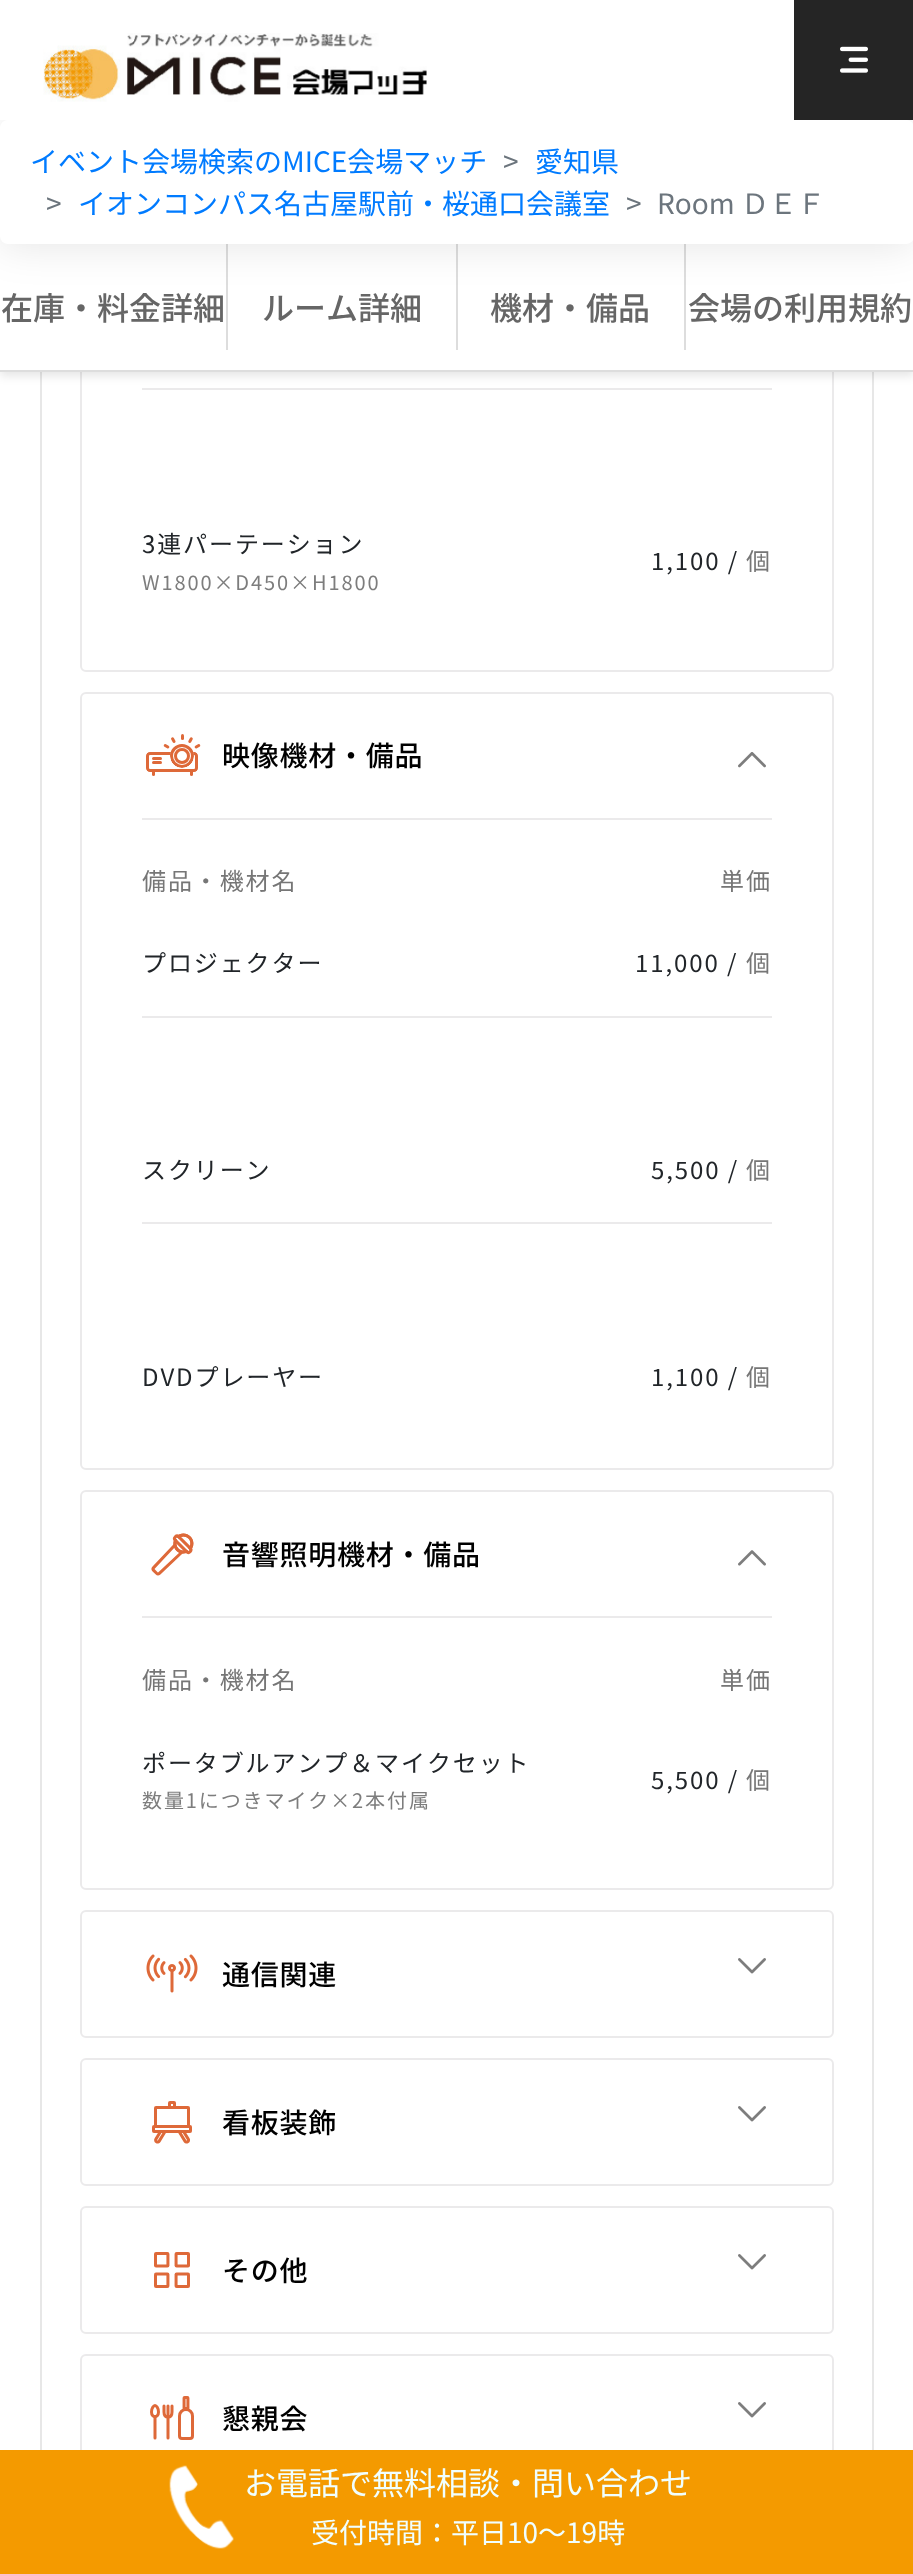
<!DOCTYPE html>
<meta charset="utf-8">
<style>body { margin: 0 } canvas { display: block }</style>
<canvas id="canvas" width="913" height="2574"></canvas>
<img id="img1" src="img_01.png" hidden>
<img id="img2" src="img_02.png" hidden>
<img id="img3" src="img_03.png" hidden>
<img id="img4" src="img_04.png" hidden>
<img id="img5" src="img_05.png" hidden>
<img id="img6" src="img_06.png" hidden>
<img id="img7" src="img_07.png" hidden>
<img id="img8" src="img_08.png" hidden>
<img id="img9" src="img_09.png" hidden>
<img id="img10" src="img_10.png" hidden>
<img id="img11" src="img_11.png" hidden>
<img id="img12" src="img_12.png" hidden>
<script>
window.onload = function () {
	const canvas = document.getElementById("canvas");
	const ctx = canvas.getContext("2d");
	ctx.miterLimit = 4;
	ctx.fontKerning = "none";
	function txt(s, x, y) {
		ctx.fillText(s, x, y);
	}
	function fill(x, y, w, h) {
		ctx.fillRect(x, y, w, h);
	}
	function round(x, y, w, h, r) {
		ctx.beginPath();
		ctx.roundRect(x, y, w, h, r);
		ctx.fill();
	}
	function img(id, x, y, w, h) {
		ctx.drawImage(document.getElementById(id), x, y, w, h);
	}

	ctx.fillStyle = "#FFFFFF";
	fill(0, 0, 913, 2574);
	ctx.fillStyle = "#E7E7E7";
	fill(872, 372, 2, 2078);
	fill(40, 372, 2, 2078);
	ctx.beginPath();
	ctx.roundRect(81, -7, 752, 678, 5);
	ctx.strokeStyle = "#EBEAEB";
	ctx.lineWidth = 2;
	ctx.stroke();
	ctx.fillStyle = "#EBEAEB";
	fill(142, 388, 630, 2);
	ctx.fillStyle = "rgba(0, 0, 0, 0.1)";
	ctx.filter = "blur(5px)";
	ctx.beginPath();
	ctx.rect(0, 204, 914, 172);
	ctx.fill();
	ctx.filter = "none";
	ctx.fillStyle = "#FFFFFF";
	fill(0, 236, 913, 134);
	ctx.fillStyle = "#DDDDDD";
	fill(226, 244, 2, 106);
	fill(456, 244, 2, 106);
	fill(684, 244, 2, 106);
	ctx.fillStyle = "rgba(0, 0, 0, 0.1)";
	ctx.filter = "blur(20px)";
	ctx.beginPath();
	ctx.roundRect(0, 122, 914, 124, 8);
	ctx.fill();
	ctx.filter = "none";
	ctx.fillStyle = "#FFFFFF";
	fill(0, 0, 794, 120);
	img("img1", 43, 33, 384, 69);
	ctx.fillStyle = "#252525";
	fill(794, 0, 119, 120);
	img("img2", 840, 46, 28, 27);
	ctx.fillStyle = "#FFFFFF";
	round(0, 120, 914, 124, 8);
	ctx.fillStyle = "#DDDDDD";
	fill(0, 370, 913, 2);
	ctx.beginPath();
	ctx.roundRect(81, 693, 752, 776, 5);
	ctx.stroke();
	img("img3", 146, 734, 55, 42);
	img("img4", 738, 752, 28, 16);
	ctx.fillStyle = "#EBEAEB";
	fill(142, 818, 630, 2);
	fill(142, 1016, 630, 2);
	fill(142, 1222, 630, 2);
	ctx.beginPath();
	ctx.roundRect(81, 1491, 752, 398, 5);
	ctx.stroke();
	img("img5", 151, 1533, 43, 43);
	img("img6", 738, 1550, 28, 16);
	fill(142, 1616, 630, 2);
	ctx.beginPath();
	ctx.roundRect(81, 1911, 752, 126, 5);
	ctx.stroke();
	img("img7", 146, 1954, 52, 39);
	img("img8", 738, 1958, 28, 16);
	ctx.beginPath();
	ctx.roundRect(81, 2059, 752, 126, 5);
	ctx.stroke();
	img("img9", 152, 2101, 40, 43);
	img("img8", 738, 2106, 28, 16);
	ctx.beginPath();
	ctx.roundRect(81, 2207, 752, 126, 5);
	ctx.stroke();
	img("img10", 154, 2252, 36, 36);
	img("img8", 738, 2254, 28, 16);
	ctx.beginPath();
	ctx.roundRect(81, 2355, 752, 126, 5);
	ctx.stroke();
	img("img11", 150, 2396, 44, 44);
	img("img8", 738, 2402, 28, 16);
	ctx.fillStyle = "#F49A00";
	fill(0, 2450, 913, 124);
	img("img12", 169, 2465, 65, 84);
	ctx.font = "28px Noto Sans JP";
	ctx.fillStyle = "#007BFF";
	txt("イベント会場検索のMICE会場マッチ", 30, 172);
	ctx.fillStyle = "#6C757D";
	txt(">", 503, 172);
	ctx.fillStyle = "#007BFF";
	txt("愛知県", 535, 172);
	ctx.fillStyle = "#6C757D";
	txt(">", 46, 214);
	ctx.fillStyle = "#007BFF";
	txt("イオンコンパス名古屋駅前・桜通口会議室", 78, 214);
	ctx.fillStyle = "#6C757D";
	txt(">", 626, 214);
	txt("Room ＤＥＦ", 657, 214);
	ctx.font = "500 32px Noto Sans JP";
	ctx.fillStyle = "#666666";
	txt("在庫・料金詳細", 1, 320);
	txt("ルーム詳細", 262, 320);
	txt("機材・備品", 490, 320);
	txt("会場の利用規約", 688, 320);
	ctx.letterSpacing = "1.9px";
	ctx.font = "24px Noto Sans JP";
	ctx.fillStyle = "#212529";
	txt("3連パーテーション", 142, 553);
	ctx.font = "20px Noto Sans JP";
	ctx.fillStyle = "#7D7D7D";
	txt("W1800×D450×H1800", 142, 590);
	ctx.font = "24px Noto Sans JP";
	ctx.fillStyle = "#212529";
	txt("1,100 /", 651, 570);
	ctx.fillStyle = "#767676";
	txt("個", 746, 570);
	ctx.letterSpacing = "0.75px";
	ctx.font = "500 28px Noto Sans JP";
	ctx.fillStyle = "#000000";
	txt("映像機材・備品", 222, 766);
	ctx.letterSpacing = "1.9px";
	ctx.font = "24px Noto Sans JP";
	ctx.fillStyle = "#767676";
	txt("備品・機材名", 142, 890);
	txt("単価", 720, 890);
	ctx.fillStyle = "#212529";
	txt("プロジェクター", 142, 972);
	txt("11,000 /", 635, 972);
	ctx.fillStyle = "#767676";
	txt("個", 746, 972);
	ctx.fillStyle = "#212529";
	txt("スクリーン", 142, 1179);
	txt("5,500 /", 651, 1179);
	ctx.fillStyle = "#767676";
	txt("個", 746, 1179);
	ctx.fillStyle = "#212529";
	txt("DVDプレーヤー", 142, 1386);
	txt("1,100 /", 651, 1386);
	ctx.fillStyle = "#767676";
	txt("個", 746, 1386);
	ctx.letterSpacing = "0.75px";
	ctx.font = "500 28px Noto Sans JP";
	ctx.fillStyle = "#000000";
	txt("音響照明機材・備品", 222, 1565);
	ctx.letterSpacing = "1.9px";
	ctx.font = "24px Noto Sans JP";
	ctx.fillStyle = "#767676";
	txt("備品・機材名", 142, 1689);
	txt("単価", 720, 1689);
	ctx.fillStyle = "#212529";
	txt("ポータブルアンプ＆マイクセット", 142, 1772);
	ctx.font = "20px Noto Sans JP";
	ctx.fillStyle = "#7D7D7D";
	txt("数量1につきマイク×2本付属", 142, 1808);
	ctx.font = "24px Noto Sans JP";
	ctx.fillStyle = "#212529";
	txt("5,500 /", 651, 1789);
	ctx.fillStyle = "#767676";
	txt("個", 746, 1789);
	ctx.letterSpacing = "0.75px";
	ctx.font = "500 28px Noto Sans JP";
	ctx.fillStyle = "#000000";
	txt("通信関連", 222, 1985);
	txt("看板装飾", 222, 2133);
	txt("その他", 222, 2281);
	txt("懇親会", 222, 2429);
	ctx.letterSpacing = "0px";
	ctx.font = "32px Noto Sans JP";
	ctx.fillStyle = "#F0FFFF";
	txt("お電話で無料相談・問い合わせ", 244, 2495);
	ctx.font = "28px Noto Sans JP";
	txt("受付時間：平日10〜19時", 311, 2543);
};
</script>
